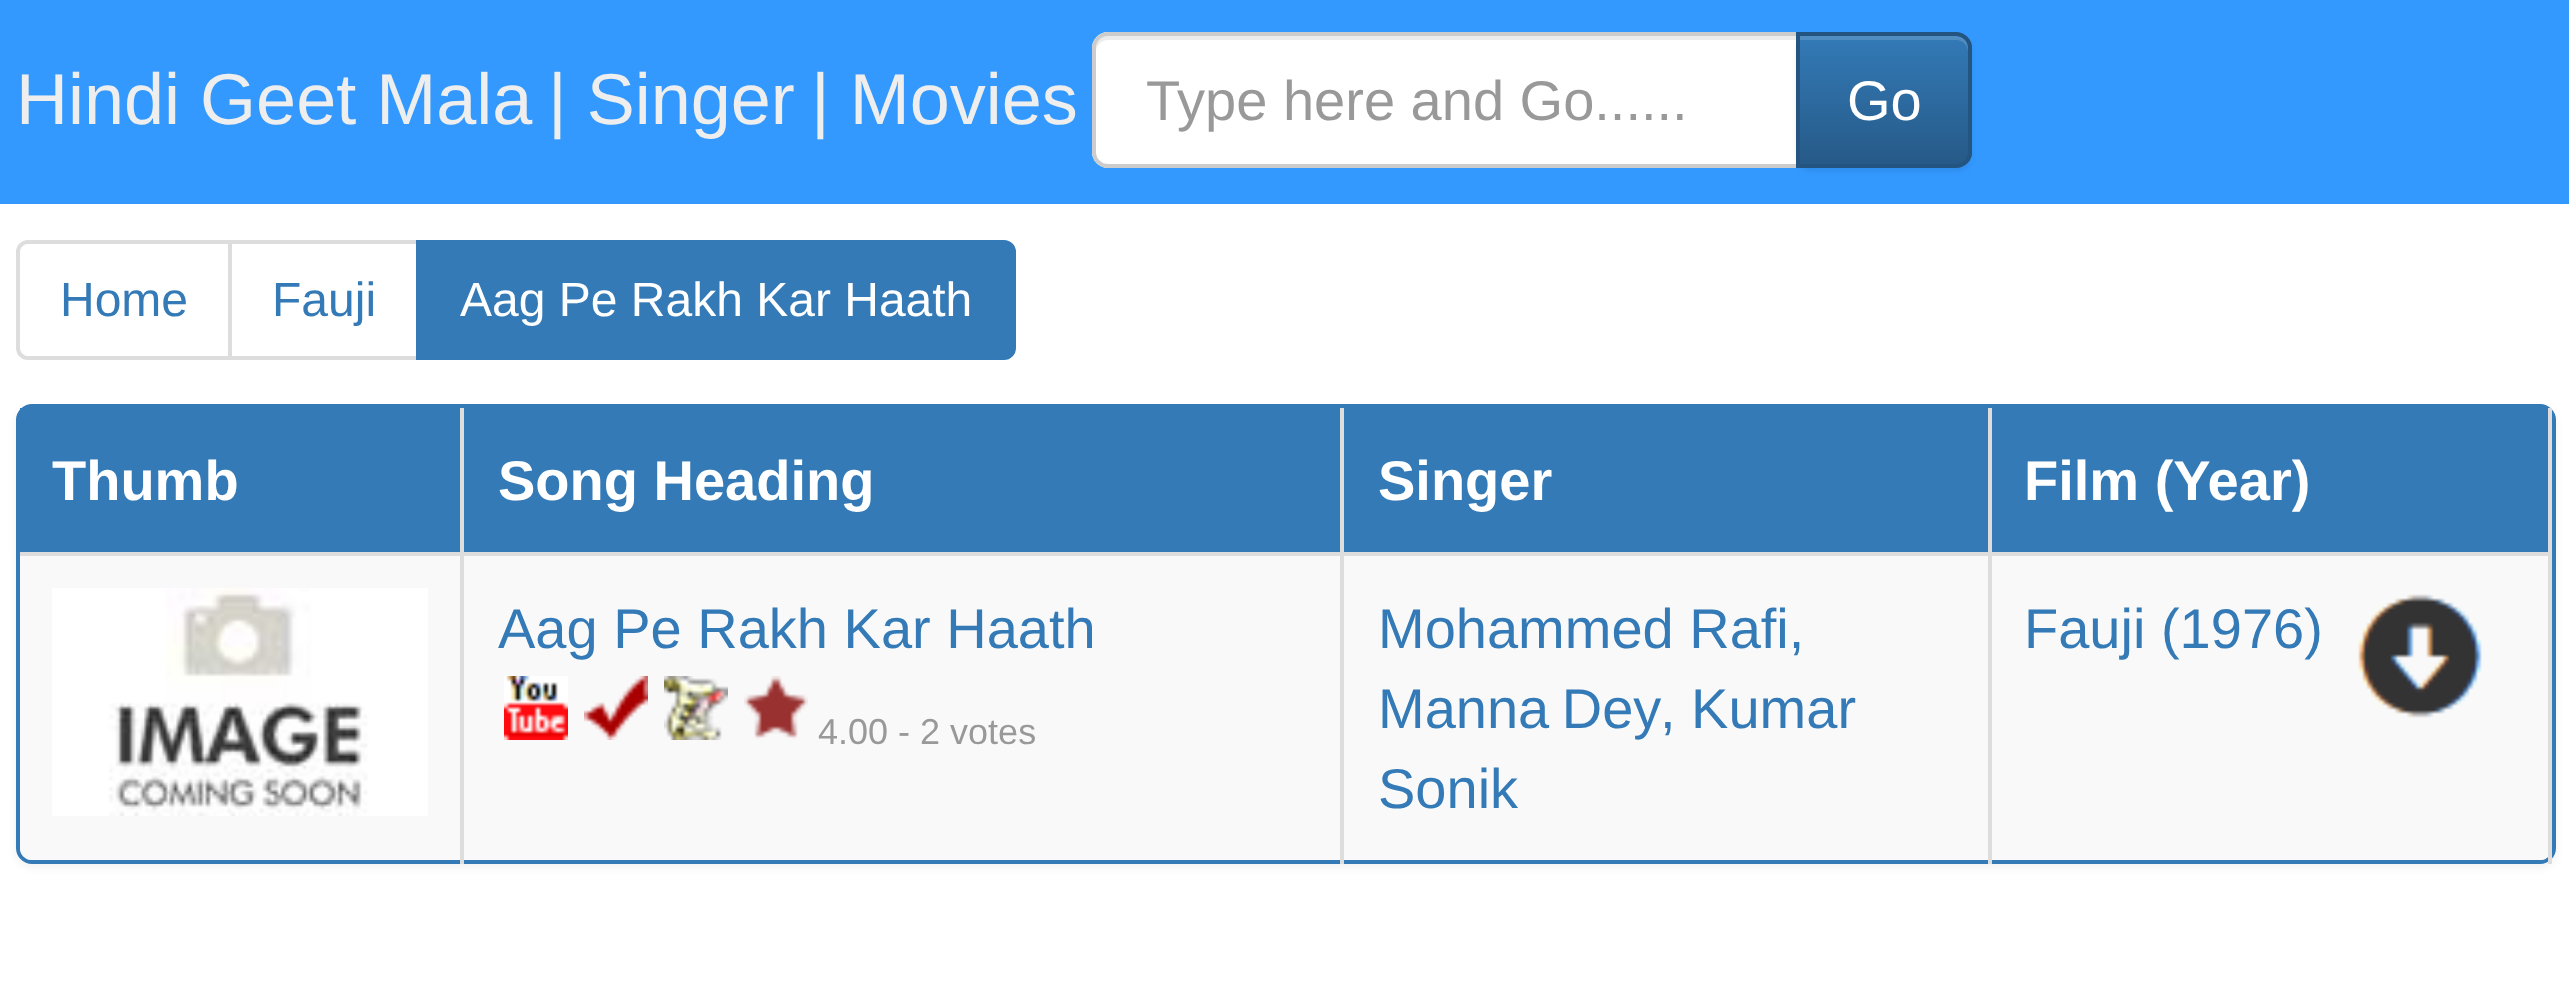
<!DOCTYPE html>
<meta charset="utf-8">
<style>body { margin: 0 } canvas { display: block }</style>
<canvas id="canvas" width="2569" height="996"></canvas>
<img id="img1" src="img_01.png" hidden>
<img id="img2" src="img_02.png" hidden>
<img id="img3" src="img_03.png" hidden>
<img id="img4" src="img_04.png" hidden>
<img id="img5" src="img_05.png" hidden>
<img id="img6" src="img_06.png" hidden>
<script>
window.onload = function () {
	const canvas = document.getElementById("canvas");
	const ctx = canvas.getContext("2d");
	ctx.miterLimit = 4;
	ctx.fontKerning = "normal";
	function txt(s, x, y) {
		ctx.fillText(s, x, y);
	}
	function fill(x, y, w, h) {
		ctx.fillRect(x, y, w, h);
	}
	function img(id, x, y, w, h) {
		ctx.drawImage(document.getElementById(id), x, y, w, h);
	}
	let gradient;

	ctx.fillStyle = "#FFFFFF";
	fill(0, 0, 2569, 996);
	ctx.fillStyle = "#3399FF";
	fill(0, 0, 2569, 204);
	ctx.fillStyle = "#FFFFFF";
	ctx.beginPath();
	ctx.roundRect(1092, 32, 708, 136, [16, 0, 0, 16]);
	ctx.fill();
	ctx.fillStyle = "#ECECEC";
	ctx.beginPath();
	ctx.moveTo(1108, 40);
	ctx.lineTo(1796, 40);
	ctx.lineTo(1796, 36);
	ctx.lineTo(1108, 36);
	ctx.bezierCurveTo(1101, 36, 1096, 41, 1096, 48);
	ctx.lineTo(1096, 52);
	ctx.bezierCurveTo(1096, 45, 1101, 40, 1108, 40);
	ctx.closePath();
	ctx.fill();
	ctx.beginPath();
	ctx.roundRect(1094, 34, 704, 132, [14, 0, 0, 14]);
	ctx.strokeStyle = "#CCCCCC";
	ctx.lineWidth = 4;
	ctx.stroke();
	ctx.fillStyle = "rgba(0, 0, 0, 0.07)";
	ctx.filter = "blur(2px)";
	ctx.beginPath();
	ctx.roundRect(1796, 36, 176, 136, 16);
	ctx.fill();
	ctx.filter = "none";
	ctx.save();
	ctx.beginPath();
	ctx.roundRect(1796, 32, 176, 136, [0, 16, 16, 0]);
	ctx.clip();
	gradient = ctx.createLinearGradient(1884, 36, 1884, 164);
	gradient.addColorStop(0, "#337AB7");
	gradient.addColorStop(1, "#265A88");
	ctx.fillStyle = gradient;
	fill(1800, 36, 172, 128);
	ctx.restore();
	ctx.fillStyle = "rgba(255, 255, 255, 0.15)";
	ctx.beginPath();
	ctx.moveTo(1800, 40);
	ctx.lineTo(1956, 40);
	ctx.bezierCurveTo(1963, 40, 1968, 45, 1968, 52);
	ctx.lineTo(1968, 48);
	ctx.bezierCurveTo(1968, 41, 1963, 36, 1956, 36);
	ctx.lineTo(1800, 36);
	ctx.closePath();
	ctx.fill();
	ctx.beginPath();
	ctx.roundRect(1798, 34, 172, 132, [0, 14, 14, 0]);
	ctx.strokeStyle = "#245580";
	ctx.stroke();
	ctx.beginPath();
	ctx.roundRect(18, 242, 212, 116, [10, 0, 0, 10]);
	ctx.strokeStyle = "#DDDDDD";
	ctx.stroke();
	ctx.strokeRect(230, 242, 188, 116);
	ctx.fillStyle = "#337AB7";
	ctx.beginPath();
	ctx.roundRect(418, 242, 596, 116, [0, 10, 10, 0]);
	ctx.fill();
	ctx.strokeStyle = "#337AB7";
	ctx.stroke();
	ctx.fillStyle = "rgba(0, 0, 0, 0.05)";
	ctx.filter = "blur(4px)";
	ctx.beginPath();
	ctx.roundRect(16, 408, 2540, 460, 16);
	ctx.fill();
	ctx.filter = "none";
	ctx.beginPath();
	ctx.roundRect(18, 406, 2536, 456, 14);
	ctx.stroke();
	ctx.fillStyle = "#337AB7";
	fill(20, 408, 2528, 144);
	ctx.fillStyle = "#DDDDDD";
	fill(1988, 552, 564, 4);
	ctx.fillStyle = "#F9F9F9";
	ctx.beginPath();
	ctx.roundRect(20, 556, 2532, 304, [0, 0, 12, 12]);
	ctx.fill();
	ctx.fillStyle = "#DDDDDD";
	fill(1988, 552, 4, 312);
	fill(1340, 552, 652, 4);
	fill(1340, 552, 4, 312);
	fill(460, 552, 884, 4);
	fill(460, 552, 4, 312);
	fill(20, 552, 444, 4);
	fill(460, 408, 4, 148);
	fill(1340, 408, 4, 148);
	fill(1988, 408, 4, 148);
	img("img1", 52, 588, 376, 228);
	img("img2", 504, 676, 64, 64);
	img("img3", 584, 676, 64, 64);
	img("img4", 664, 676, 64, 64);
	img("img5", 744, 676, 64, 64);
	fill(2548, 408, 4, 456);
	img("img6", 2358, 594, 124, 124);
	ctx.font = "72px Liberation Sans";
	ctx.fillStyle = "#EEEEEE";
	txt("Hindi Geet Mala", 16, 124);
	txt("| Singer", 548, 124);
	txt("| Movies", 811, 124);
	ctx.font = "56px Liberation Sans";
	ctx.fillStyle = "#999999";
	txt("Type here and Go......", 1146, 120);
	ctx.fillStyle = "#FFFFFF";
	txt("Go", 1847, 120);
	ctx.font = "48px Liberation Sans";
	ctx.fillStyle = "#337AB7";
	txt("Home", 60, 316);
	txt("Fauji", 272, 316);
	ctx.fillStyle = "#FFFFFF";
	txt("Aag Pe Rakh Kar Haath", 460, 316);
	ctx.font = "bold 56px Liberation Sans";
	txt("Thumb", 52, 500);
	txt("Song Heading", 498, 500);
	txt("Singer", 1378, 500);
	txt("Film (Year)", 2024, 500);
	ctx.font = "56px Liberation Sans";
	ctx.fillStyle = "#337AB7";
	txt("Aag Pe Rakh Kar Haath", 498, 648);
	ctx.font = "36px Liberation Sans";
	ctx.fillStyle = "#999999";
	txt("4.00 - 2 votes", 818, 744);
	ctx.font = "56px Liberation Sans";
	ctx.fillStyle = "#337AB7";
	txt("Mohammed Rafi,", 1378, 648);
	ctx.wordSpacing = "-3px";
	txt("Manna Dey", 1378, 728);
	ctx.wordSpacing = "0px";
	txt(", Kumar", 1660, 728);
	txt("Sonik", 1378, 808);
	txt("Fauji (1976)", 2024, 648);
};
</script>
